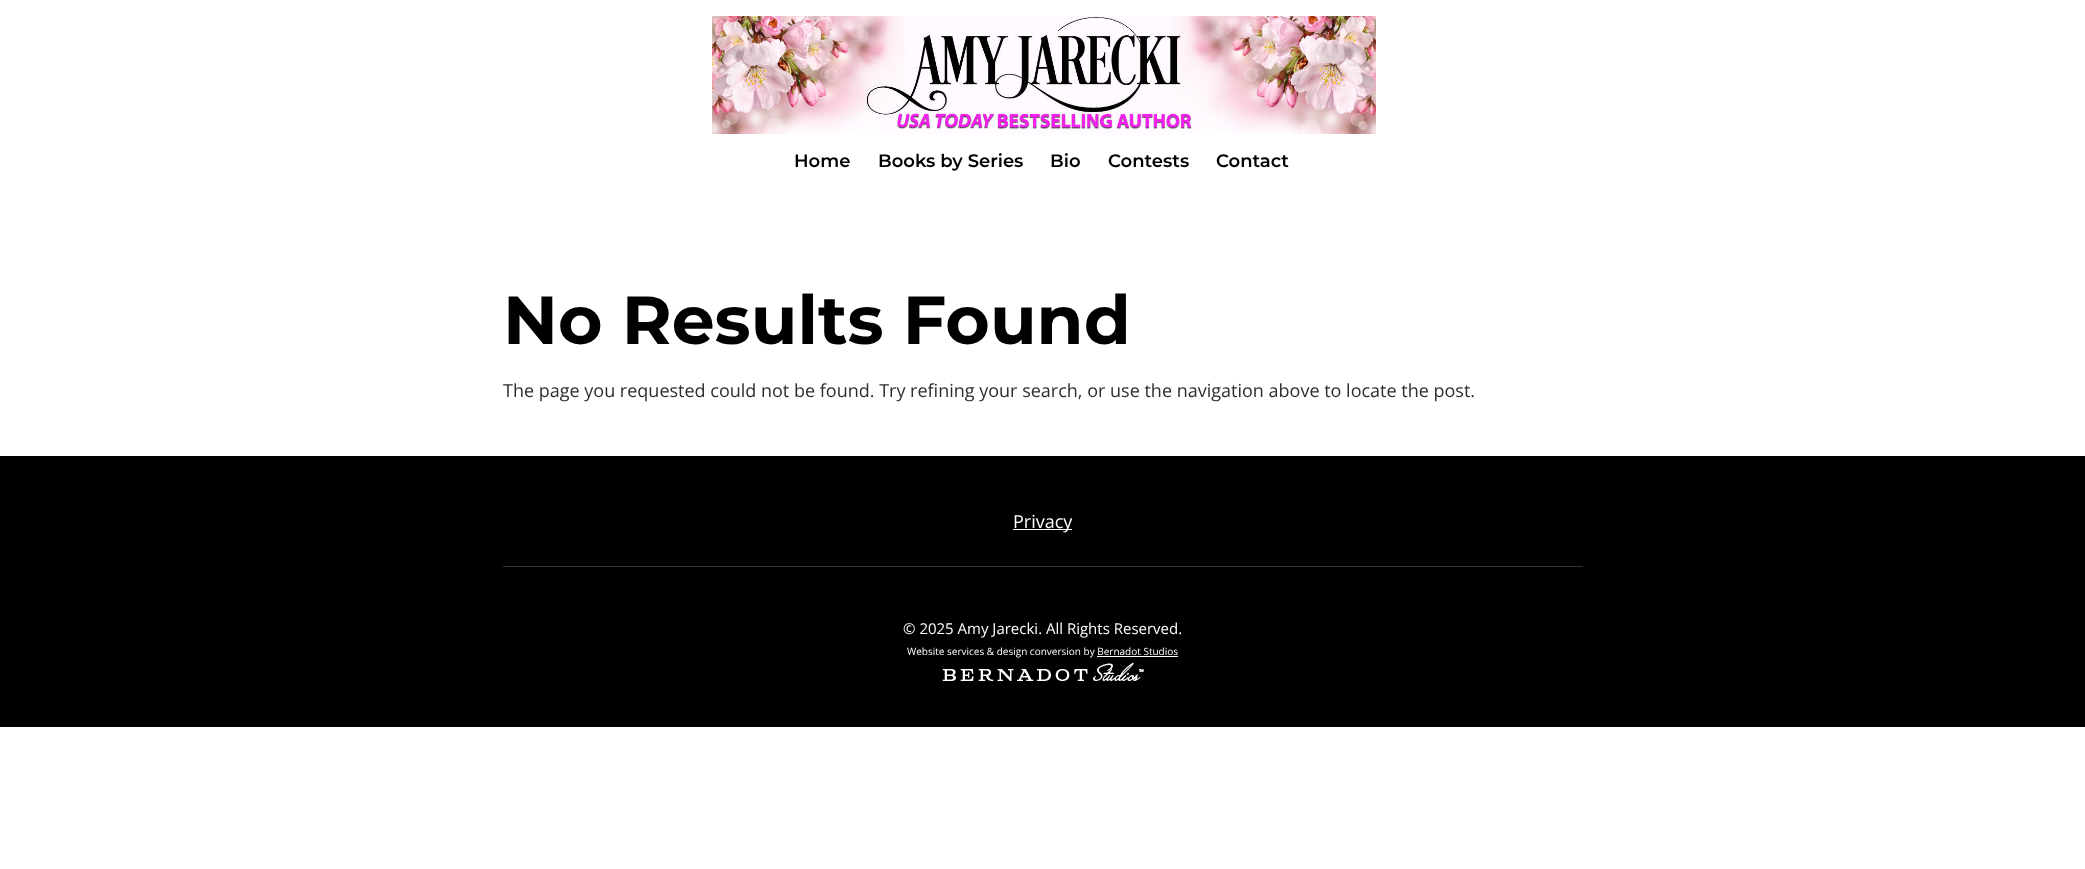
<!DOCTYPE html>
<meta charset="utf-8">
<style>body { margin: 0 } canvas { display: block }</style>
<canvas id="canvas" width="2085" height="869"></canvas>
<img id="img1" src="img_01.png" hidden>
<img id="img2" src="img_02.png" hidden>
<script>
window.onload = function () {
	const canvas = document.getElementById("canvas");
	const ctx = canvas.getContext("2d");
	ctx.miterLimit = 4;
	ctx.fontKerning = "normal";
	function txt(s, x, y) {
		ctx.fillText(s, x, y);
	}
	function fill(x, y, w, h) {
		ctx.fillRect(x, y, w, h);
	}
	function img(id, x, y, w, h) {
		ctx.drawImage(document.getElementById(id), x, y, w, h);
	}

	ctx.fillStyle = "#FFFFFF";
	fill(0, 0, 2085, 869);
	img("img1", 712, 16, 664, 118);
	ctx.fillStyle = "#000000";
	fill(0, 456, 2085, 271);
	ctx.fillStyle = "#FFFFFF";
	fill(1013, 529, 59, 1);
	ctx.fillStyle = "#333333";
	fill(503, 566, 1080, 1);
	ctx.fillStyle = "#FFFFFF";
	fill(1097, 656, 81, 1);
	img("img2", 942, 662, 202, 19);
	ctx.font = "100 18px 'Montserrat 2'";
	ctx.fillStyle = "#000000";
	txt("Home", 794, 167);
	txt("Books by Series", 878, 167);
	txt("Bio", 1050, 167);
	txt("Contests", 1108, 167);
	txt("Contact", 1216, 167);
	ctx.font = "100 68px Montserrat";
	txt("No Results Found", 503, 344);
	ctx.font = "18px Open Sans";
	ctx.fillStyle = "#2D2D2D";
	txt("The page you requested could not be found. Try refining your search, or use the navigation above to locate the post.", 503, 397);
	ctx.fillStyle = "#FFFFFF";
	txt("Privacy", 1013, 528);
	ctx.font = "15px Open Sans";
	txt("© 2025 Amy Jarecki. All Rights Reserved.", 903, 634);
	ctx.font = "10px Open Sans";
	txt("Website services & design conversion by Bernadot Studios", 907, 655);
};
</script>
